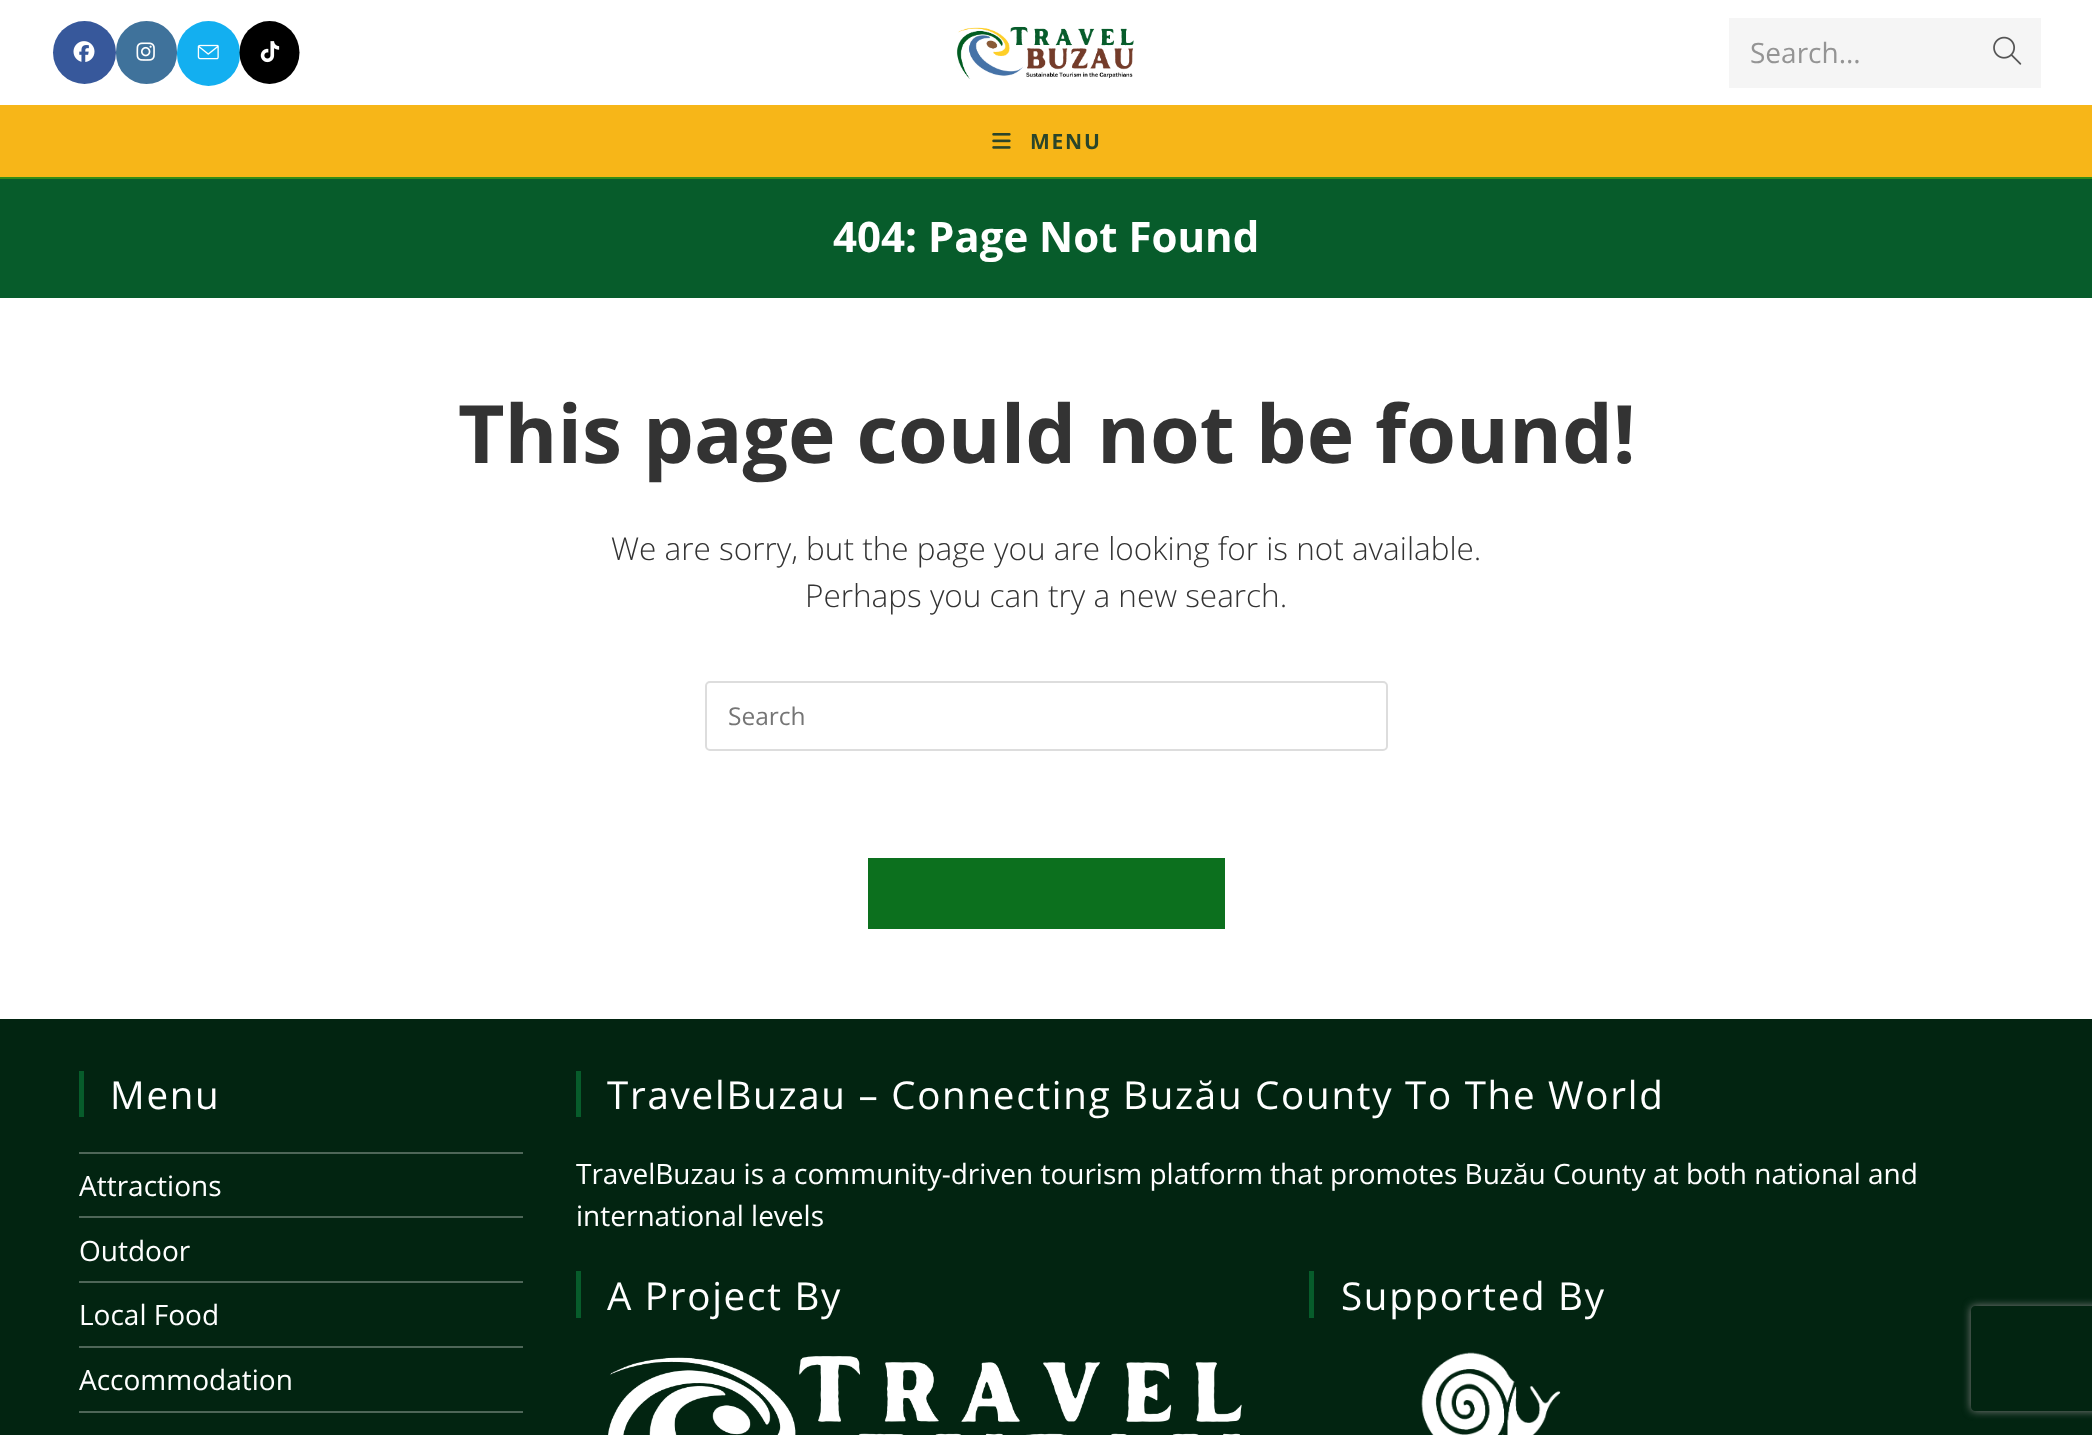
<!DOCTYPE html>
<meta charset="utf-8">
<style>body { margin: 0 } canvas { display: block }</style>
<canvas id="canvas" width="2092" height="1435"></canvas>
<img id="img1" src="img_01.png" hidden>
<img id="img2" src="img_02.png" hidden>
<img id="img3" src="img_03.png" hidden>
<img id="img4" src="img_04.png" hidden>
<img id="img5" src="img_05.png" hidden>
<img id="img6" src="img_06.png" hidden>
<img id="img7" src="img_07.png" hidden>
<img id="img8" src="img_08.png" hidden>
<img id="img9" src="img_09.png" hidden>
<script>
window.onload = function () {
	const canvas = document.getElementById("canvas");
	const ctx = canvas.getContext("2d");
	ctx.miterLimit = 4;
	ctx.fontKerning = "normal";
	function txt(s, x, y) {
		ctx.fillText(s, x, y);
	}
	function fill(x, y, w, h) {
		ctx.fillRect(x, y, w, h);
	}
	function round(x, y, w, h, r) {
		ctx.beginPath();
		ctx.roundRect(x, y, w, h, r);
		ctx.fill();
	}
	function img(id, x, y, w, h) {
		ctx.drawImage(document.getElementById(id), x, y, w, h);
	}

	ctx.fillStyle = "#FFFFFF";
	fill(0, 0, 2092, 1435);
	ctx.fillStyle = "#338C16";
	fill(0, 177, 2092, 2);
	ctx.fillStyle = "#37589B";
	ctx.beginPath();
	ctx.arc(84.5, 52.5, 31.5, 0, Math.PI * 2);
	ctx.fill();
	img("img1", 73, 41, 22, 21);
	ctx.fillStyle = "#3F729B";
	round(116, 21, 61, 63, 30.5);
	img("img2", 136, 42, 19, 19);
	ctx.fillStyle = "#13AFF0";
	round(177, 21, 63, 65, 31.5);
	img("img3", 197, 44, 22, 16);
	ctx.fillStyle = "#000000";
	ctx.beginPath();
	ctx.ellipse(269.5, 52.5, 30, 31.5, 0, 0, Math.PI * 2);
	ctx.fill();
	img("img4", 260, 41, 20, 22);
	img("img5", 956, 26, 178, 53);
	ctx.fillStyle = "#F5F5F5";
	fill(1729, 18, 312, 70);
	img("img6", 1993, 36, 29, 29);
	ctx.fillStyle = "#F7B618";
	fill(0, 105, 2092, 72);
	img("img7", 992, 133, 19, 16);
	ctx.fillStyle = "#075C2B";
	fill(0, 179, 2092, 119);
	ctx.beginPath();
	ctx.roundRect(706, 682, 681, 68, 4);
	ctx.strokeStyle = "#DDDDDD";
	ctx.lineWidth = 2;
	ctx.stroke();
	ctx.fillStyle = "#0C701E";
	fill(868, 858, 357, 71);
	ctx.fillStyle = "#022411";
	fill(0, 1019, 2092, 416);
	ctx.fillStyle = "#075C2B";
	fill(79, 1071, 5, 46);
	ctx.fillStyle = "#4E6658";
	fill(79, 1152, 444, 2);
	fill(79, 1216, 444, 2);
	fill(79, 1281, 444, 2);
	fill(79, 1346, 444, 2);
	fill(79, 1411, 444, 2);
	ctx.fillStyle = "#075C2B";
	fill(576, 1071, 5, 46);
	fill(576, 1271, 5, 47);
	img("img8", 608, 1356, 634, 79);
	fill(1309, 1271, 5, 47);
	img("img9", 1421, 1352, 140, 83);
	ctx.save();
	ctx.beginPath();
	ctx.moveTo(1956, 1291);
	ctx.lineTo(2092, 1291);
	ctx.lineTo(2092, 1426);
	ctx.lineTo(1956, 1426);
	ctx.closePath();
	ctx.moveTo(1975, 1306);
	ctx.lineTo(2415, 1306);
	ctx.bezierCurveTo(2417, 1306, 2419, 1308, 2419, 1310);
	ctx.lineTo(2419, 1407);
	ctx.bezierCurveTo(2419, 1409, 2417, 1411, 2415, 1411);
	ctx.lineTo(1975, 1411);
	ctx.bezierCurveTo(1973, 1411, 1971, 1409, 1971, 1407);
	ctx.lineTo(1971, 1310);
	ctx.bezierCurveTo(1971, 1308, 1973, 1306, 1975, 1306);
	ctx.closePath();
	ctx.clip("evenodd");
	ctx.fillStyle = "#808080";
	ctx.filter = "blur(4.5px)";
	ctx.beginPath();
	ctx.roundRect(1971, 1306, 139, 105, 4);
	ctx.fill();
	ctx.filter = "none";
	ctx.restore();
	ctx.font = "28px Open Sans";
	ctx.fillStyle = "#949494";
	txt("Search...", 1750, 63);
	ctx.letterSpacing = "1.75px";
	ctx.font = "bold 21px Open Sans";
	ctx.fillStyle = "#2A452A";
	txt("MENU", 1030, 149);
	ctx.letterSpacing = "0px";
	ctx.font = "bold 42px Open Sans";
	ctx.fillStyle = "#FFFFFF";
	txt("404: Page Not Found", 833, 252);
	ctx.font = "bold 80.5px Open Sans";
	ctx.fillStyle = "#333333";
	txt("This page could not be found!", 458, 463);
	ctx.font = "300 31.5px Open Sans";
	txt("We are sorry, but the page you are looking for is not available.", 611, 560);
	txt("Perhaps you can try a new search.", 805, 607);
	ctx.font = "24.5px Open Sans";
	ctx.fillStyle = "#757575";
	txt("Search", 728, 725);
	ctx.letterSpacing = "1.75px";
	ctx.font = "38.5px Open Sans";
	ctx.fillStyle = "#FFFFFF";
	txt("Menu", 110, 1109);
	ctx.letterSpacing = "0px";
	ctx.font = "28px Open Sans";
	txt("Attractions", 79, 1196);
	txt("Outdoor", 79, 1261);
	txt("Local Food", 79, 1325);
	txt("Accommodation", 79, 1390);
	ctx.letterSpacing = "1.75px";
	ctx.font = "38.5px Open Sans";
	txt("TravelBuzau – Connecting Buzău County To The World", 607, 1109);
	ctx.letterSpacing = "0px";
	ctx.font = "28px Open Sans";
	txt("TravelBuzau is a community-driven tourism platform that promotes Buzău County at both national and", 576, 1184);
	txt("international levels", 576, 1226);
	ctx.letterSpacing = "1.75px";
	ctx.font = "38.5px Open Sans";
	txt("A Project By", 607, 1310);
	txt("Supported By", 1341, 1310);
};
</script>
